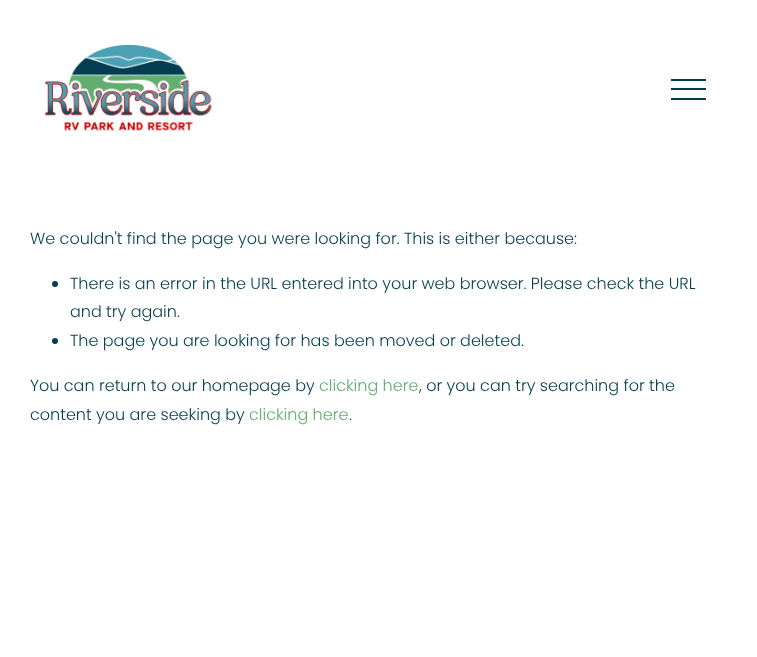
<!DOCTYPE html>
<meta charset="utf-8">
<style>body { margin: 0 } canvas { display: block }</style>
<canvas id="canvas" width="757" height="657"></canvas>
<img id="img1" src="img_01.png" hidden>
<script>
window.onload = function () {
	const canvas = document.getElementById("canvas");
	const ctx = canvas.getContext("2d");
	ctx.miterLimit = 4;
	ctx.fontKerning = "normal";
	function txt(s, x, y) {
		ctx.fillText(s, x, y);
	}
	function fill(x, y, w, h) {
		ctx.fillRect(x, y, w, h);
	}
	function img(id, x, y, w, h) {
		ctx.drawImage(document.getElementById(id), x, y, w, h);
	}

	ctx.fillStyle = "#FFFFFF";
	fill(0, 0, 757, 657);
	img("img1", 45, 45, 167, 86);
	ctx.fillStyle = "#023E4F";
	fill(671, 79, 35, 2);
	fill(671, 88, 35, 2);
	fill(671, 98, 35, 2);
	ctx.beginPath();
	ctx.arc(55, 284, 3, 0, Math.PI * 2);
	ctx.fill();
	ctx.beginPath();
	ctx.arc(55, 341, 3, 0, Math.PI * 2);
	ctx.fill();
	ctx.font = "300 16px Poppins";
	txt("We couldn't find the page you were looking for. This is either because:", 30, 244);
	txt("There is an error in the URL entered into your web browser. Please check the URL", 70, 289);
	txt("and try again.", 70, 317);
	txt("The page you are looking for has been moved or deleted.", 70, 346);
	txt("You can return to our homepage by", 30, 391);
	ctx.fillStyle = "#62AD70";
	txt("clicking here", 319, 391);
	ctx.fillStyle = "#023E4F";
	txt(", or you can try searching for the", 419, 391);
	txt("content you are seeking by", 30, 420);
	ctx.fillStyle = "#62AD70";
	txt("clicking here", 249, 420);
	ctx.fillStyle = "#023E4F";
	txt(".", 349, 420);
};
</script>
